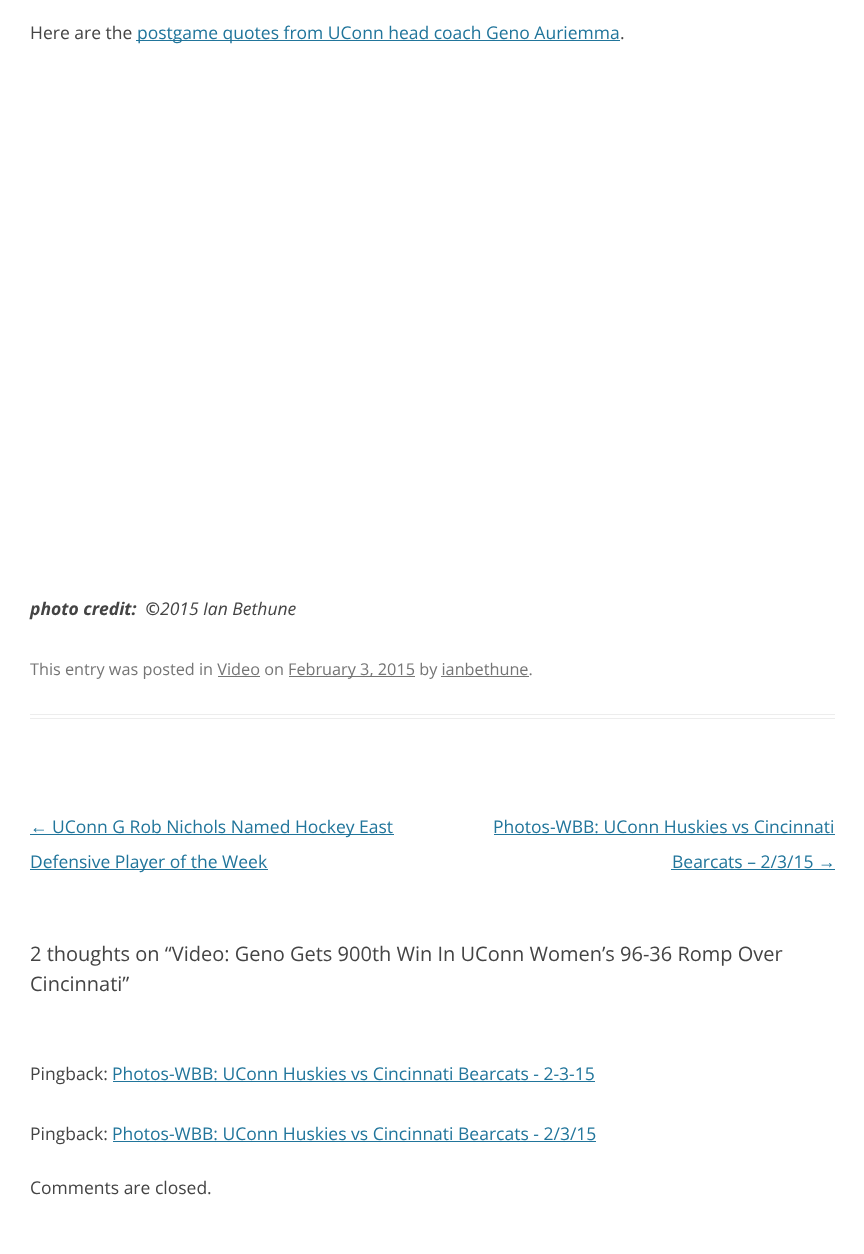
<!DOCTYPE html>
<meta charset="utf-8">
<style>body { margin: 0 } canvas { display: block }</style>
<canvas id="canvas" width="864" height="1254"></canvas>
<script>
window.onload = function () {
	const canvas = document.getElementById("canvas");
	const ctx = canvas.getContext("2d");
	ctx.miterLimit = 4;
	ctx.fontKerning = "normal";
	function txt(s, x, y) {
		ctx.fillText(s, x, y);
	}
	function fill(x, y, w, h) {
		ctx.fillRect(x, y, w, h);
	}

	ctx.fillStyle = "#FFFFFF";
	fill(0, 0, 864, 1254);
	ctx.fillStyle = "#EDEDED";
	fill(30, 714, 805, 1);
	fill(30, 718, 805, 1);
	ctx.fillStyle = "#21759B";
	fill(136, 40, 484, 1);
	ctx.fillStyle = "#757575";
	fill(289, 676, 126, 1);
	fill(218, 676, 42, 1);
	fill(441, 676, 88, 1);
	ctx.fillStyle = "#21759B";
	fill(30, 834, 364, 1);
	fill(30, 869, 238, 1);
	fill(494, 834, 341, 1);
	fill(671, 869, 164, 1);
	fill(113, 1081, 482, 1);
	fill(113, 1141, 483, 1);
	ctx.font = "17.5px Open Sans";
	ctx.fillStyle = "#444444";
	txt("Here are the", 30, 39);
	ctx.fillStyle = "#21759B";
	txt("postgame quotes from UConn head coach Geno Auriemma", 137, 39);
	ctx.fillStyle = "#444444";
	txt(".", 620, 39);
	ctx.font = "italic bold 17.5px Open Sans";
	txt("photo credit:  ©", 30, 615);
	ctx.font = "italic 17.5px Open Sans";
	txt("2015 Ian Bethune", 160, 615);
	ctx.font = "16.25px Open Sans";
	ctx.fillStyle = "#757575";
	txt("This entry was posted in Video on", 30, 675);
	txt("February 3, 2015 by ianbethune.", 288, 675);
	ctx.font = "17.5px Liberation Sans";
	ctx.fillStyle = "#21759B";
	txt("←", 30, 833);
	ctx.font = "17.5px Open Sans";
	txt("UConn G Rob Nichols Named Hockey East", 52, 833);
	txt("Defensive Player of the Week", 30, 868);
	txt("Photos-WBB: UConn Huskies vs Cincinnati", 493, 833);
	txt("Bearcats – 2/3/15", 672, 868);
	ctx.font = "17.5px Liberation Sans";
	txt("→", 818, 868);
	ctx.font = "20px Open Sans";
	ctx.fillStyle = "#444444";
	txt("2 thoughts on “Video: Geno Gets 900th Win In UConn Women’s 96-36 Romp Over", 30, 961);
	txt("Cincinnati”", 30, 991);
	ctx.font = "17.5px Open Sans";
	txt("Pingback:", 30, 1080);
	ctx.fillStyle = "#21759B";
	txt("Photos-WBB: UConn Huskies vs Cincinnati Bearcats - 2-3-15", 112, 1080);
	ctx.fillStyle = "#444444";
	txt("Pingback:", 30, 1140);
	ctx.fillStyle = "#21759B";
	txt("Photos-WBB: UConn Huskies vs Cincinnati Bearcats - 2/3/15", 112, 1140);
	ctx.fillStyle = "#444444";
	txt("Comments are closed.", 30, 1194);
};
</script>
